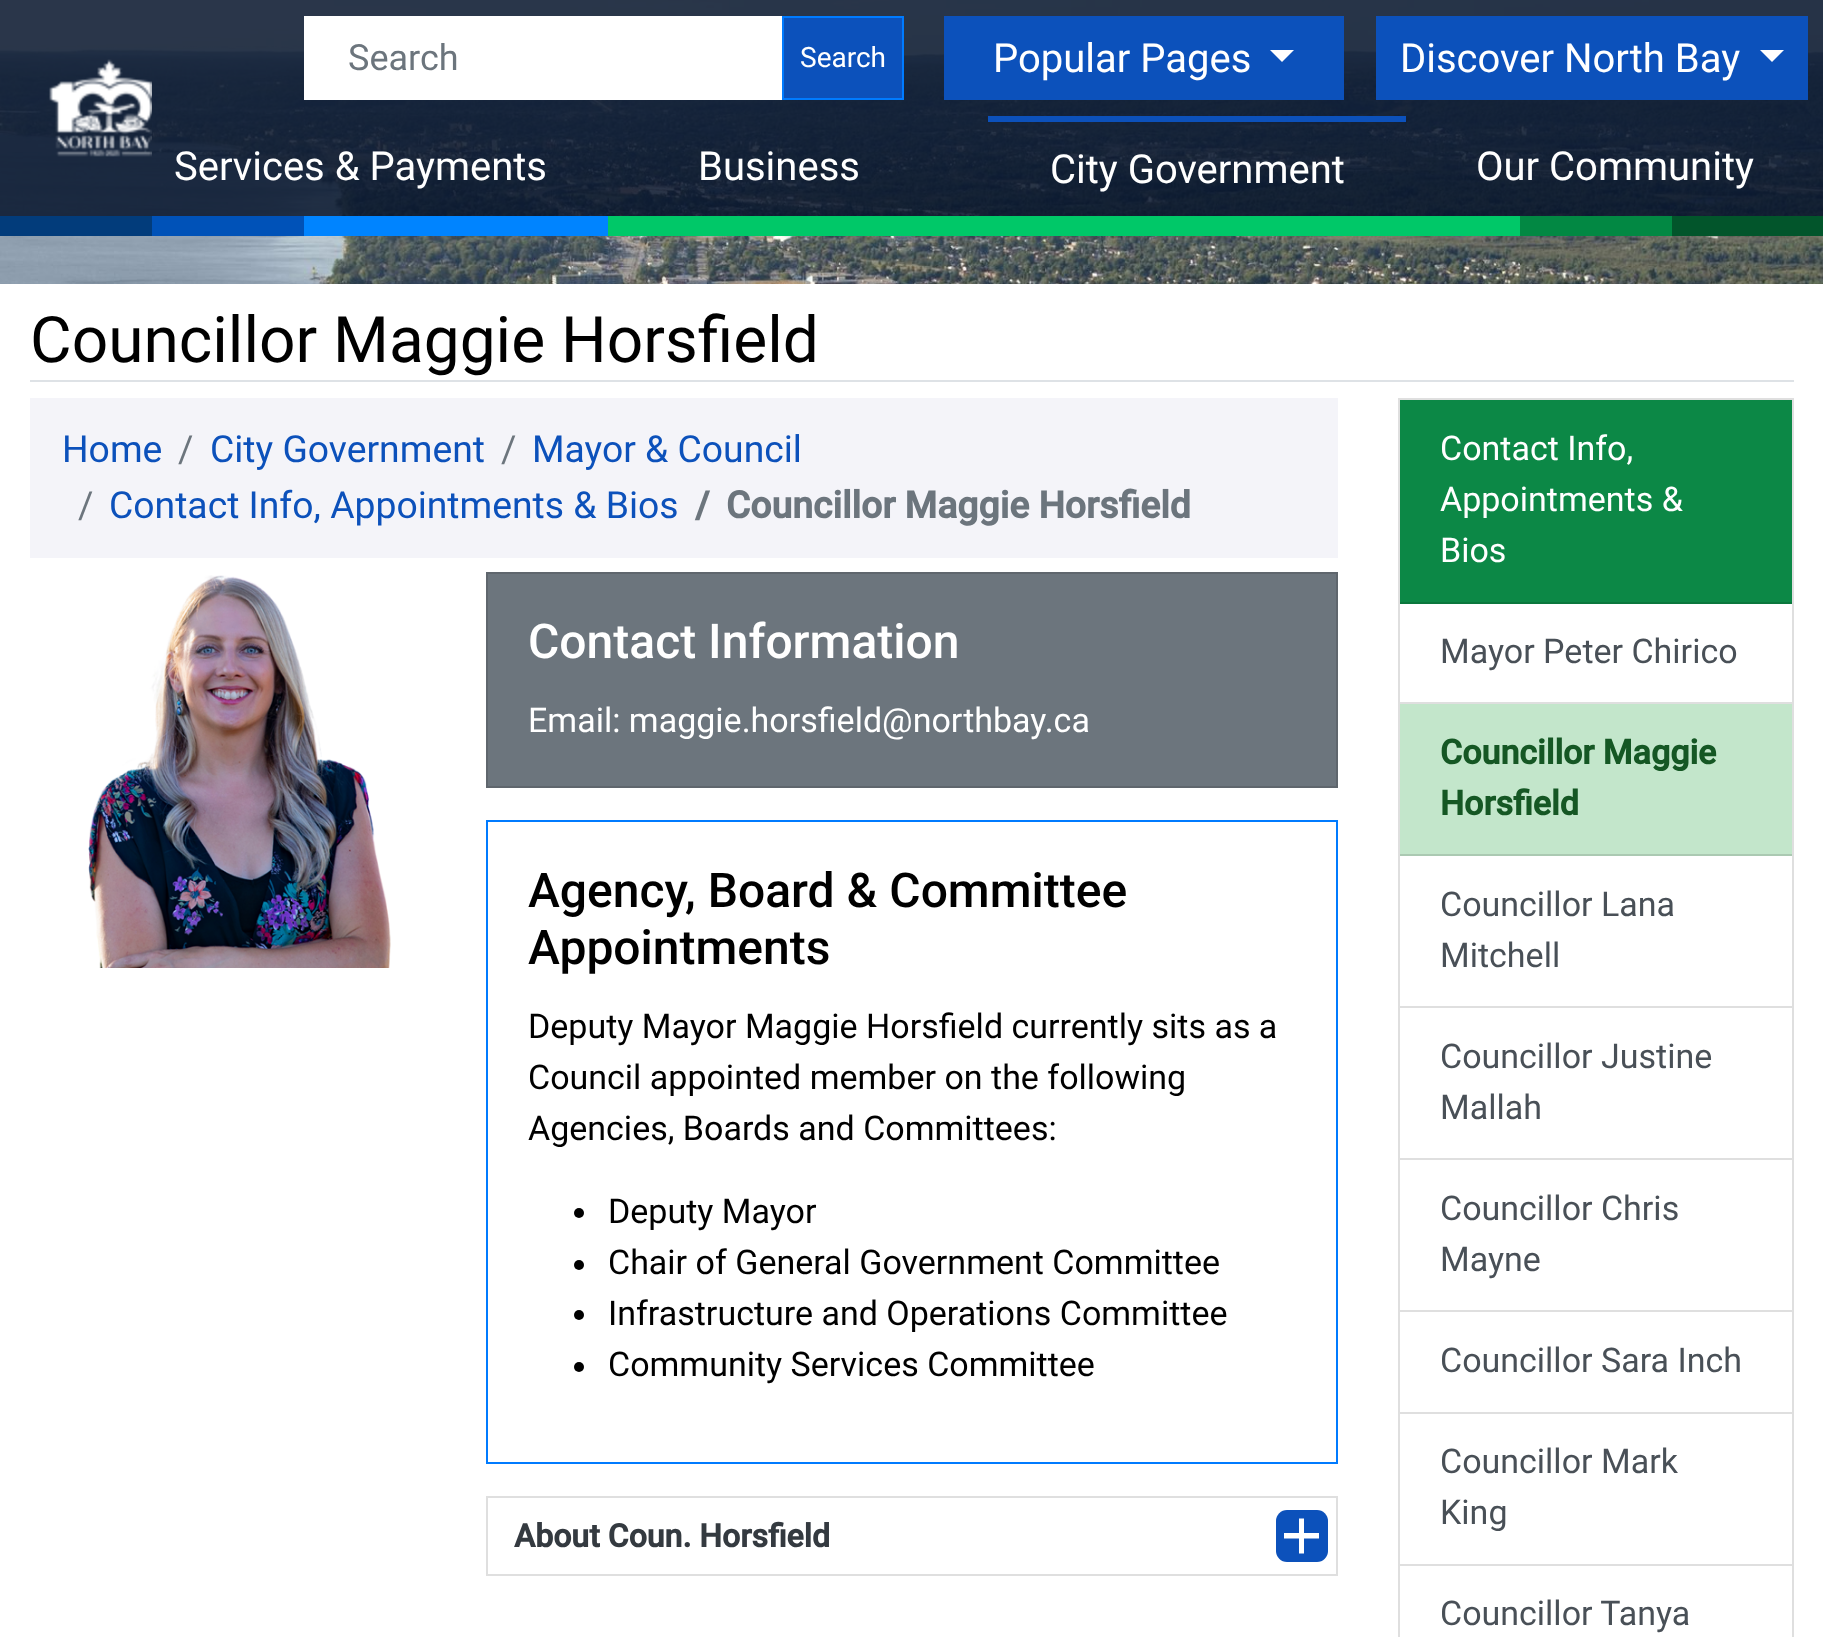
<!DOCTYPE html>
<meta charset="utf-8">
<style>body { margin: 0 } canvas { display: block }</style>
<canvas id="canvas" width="1823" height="1637"></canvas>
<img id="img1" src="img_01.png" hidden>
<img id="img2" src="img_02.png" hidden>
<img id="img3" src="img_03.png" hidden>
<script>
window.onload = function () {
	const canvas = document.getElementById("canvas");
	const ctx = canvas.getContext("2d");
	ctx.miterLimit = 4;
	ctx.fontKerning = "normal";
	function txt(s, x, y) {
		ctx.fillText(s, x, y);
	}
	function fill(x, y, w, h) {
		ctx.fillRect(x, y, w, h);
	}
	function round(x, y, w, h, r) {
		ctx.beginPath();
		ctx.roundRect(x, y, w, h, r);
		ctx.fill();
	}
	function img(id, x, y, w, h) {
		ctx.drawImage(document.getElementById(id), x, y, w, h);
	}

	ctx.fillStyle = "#FFFFFF";
	fill(0, 0, 1823, 1637);
	img("img1", 0, 0, 1823, 284);
	ctx.fillStyle = "rgba(0, 0, 0, 0.4)";
	fill(0, 0, 1823, 216);
	ctx.fillStyle = "rgba(5, 21, 48, 0.75)";
	fill(0, 0, 1823, 216);
	img("img2", 49, 59, 103, 98);
	ctx.fillStyle = "#FFFFFF";
	fill(304, 16, 478, 84);
	ctx.fillStyle = "#0C51BB";
	ctx.beginPath();
	ctx.rect(783, 17, 120, 82);
	ctx.fill();
	ctx.strokeStyle = "#007BFF";
	ctx.lineWidth = 2;
	ctx.stroke();
	fill(944, 16, 400, 84);
	ctx.fillStyle = "#FFFFFF";
	ctx.beginPath();
	ctx.moveTo(1270, 50);
	ctx.lineTo(1294, 50);
	ctx.lineTo(1282, 62);
	ctx.closePath();
	ctx.fill();
	ctx.fillStyle = "#0C51BB";
	fill(1376, 16, 432, 84);
	ctx.fillStyle = "#FFFFFF";
	ctx.beginPath();
	ctx.moveTo(1760, 50);
	ctx.lineTo(1784, 50);
	ctx.lineTo(1772, 62);
	ctx.closePath();
	ctx.fill();
	ctx.fillStyle = "#0C51BB";
	fill(988, 116, 418, 6);
	ctx.fillStyle = "#023C7B";
	fill(0, 216, 152, 20);
	ctx.fillStyle = "#0052B8";
	fill(152, 216, 152, 20);
	ctx.fillStyle = "#0084FF";
	fill(304, 216, 304, 20);
	ctx.fillStyle = "#00C868";
	fill(608, 216, 912, 20);
	ctx.fillStyle = "#028843";
	fill(1520, 216, 152, 20);
	ctx.fillStyle = "#02552B";
	fill(1672, 216, 151, 20);
	ctx.fillStyle = "#DEE2E6";
	fill(30, 380, 1764, 2);
	ctx.fillStyle = "#F4F4F9";
	fill(30, 398, 1308, 160);
	img("img3", 88, 575, 303, 393);
	ctx.fillStyle = "#6C757D";
	ctx.beginPath();
	ctx.rect(487, 573, 850, 214);
	ctx.fill();
	ctx.strokeStyle = "#5F666D";
	ctx.stroke();
	ctx.strokeStyle = "#007BFF";
	ctx.strokeRect(487, 821, 850, 642);
	ctx.fillStyle = "#000000";
	ctx.beginPath();
	ctx.arc(579, 1213, 5, 0, Math.PI * 2);
	ctx.fill();
	ctx.beginPath();
	ctx.arc(579, 1265, 5, 0, Math.PI * 2);
	ctx.fill();
	ctx.beginPath();
	ctx.arc(579, 1315, 5, 0, Math.PI * 2);
	ctx.fill();
	ctx.beginPath();
	ctx.arc(579, 1367, 5, 0, Math.PI * 2);
	ctx.fill();
	ctx.strokeStyle = "#DFDFDF";
	ctx.strokeRect(487, 1497, 850, 78);
	ctx.fillStyle = "#0C51BB";
	round(1276, 1510, 52, 52, 11);
	ctx.fillStyle = "#FFFFFF";
	ctx.beginPath();
	ctx.moveTo(1304, 1538.5);
	ctx.lineTo(1304, 1553.5);
	ctx.lineTo(1299, 1553.5);
	ctx.lineTo(1299, 1538.5);
	ctx.lineTo(1284, 1538.5);
	ctx.lineTo(1284, 1533);
	ctx.lineTo(1299, 1533);
	ctx.lineTo(1299, 1518.5);
	ctx.lineTo(1304, 1518.5);
	ctx.lineTo(1304, 1533);
	ctx.lineTo(1319, 1533);
	ctx.lineTo(1319, 1538.5);
	ctx.closePath();
	ctx.fill();
	ctx.strokeRect(1399, 399, 394, 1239);
	ctx.fillStyle = "#0C8846";
	fill(1400, 400, 392, 202);
	ctx.fillStyle = "#0B773D";
	fill(1400, 602, 392, 2);
	ctx.fillStyle = "#DFDFDF";
	fill(1400, 702, 392, 2);
	ctx.fillStyle = "#C3E6CB";
	fill(1400, 704, 392, 150);
	ctx.fillStyle = "#ABC9B2";
	fill(1400, 854, 392, 2);
	ctx.fillStyle = "#DFDFDF";
	fill(1400, 1006, 392, 2);
	fill(1400, 1158, 392, 2);
	fill(1400, 1310, 392, 2);
	fill(1400, 1412, 392, 2);
	fill(1400, 1564, 392, 2);
	ctx.font = "36px Roboto";
	ctx.fillStyle = "#6C757D";
	txt("Search", 348, 70);
	ctx.font = "28px Roboto";
	ctx.fillStyle = "#FFFFFF";
	txt("Search", 800, 67);
	ctx.font = "40px Roboto";
	txt("Popular Pages", 993, 72);
	txt("Discover North Bay", 1400, 72);
	txt("Services & Payments", 174, 180);
	txt("Business", 698, 180);
	txt("City Government", 1050, 183);
	txt("Our Community", 1476, 180);
	ctx.font = "64px Roboto";
	ctx.fillStyle = "#000000";
	txt("Councillor Maggie Horsfield", 30, 362);
	ctx.font = "37.3px Roboto";
	ctx.fillStyle = "#0C51BB";
	txt("Home", 62, 462);
	ctx.fillStyle = "#6C757D";
	txt("/", 178, 462);
	ctx.fillStyle = "#0C51BB";
	txt("City Government", 210, 462);
	ctx.fillStyle = "#6C757D";
	txt("/", 501, 462);
	ctx.fillStyle = "#0C51BB";
	txt("Mayor & Council", 532, 462);
	ctx.fillStyle = "#6C757D";
	txt("/", 78, 518);
	ctx.fillStyle = "#0C51BB";
	txt("Contact Info, Appointments & Bios", 109, 518);
	ctx.font = "bold 37.3px Roboto";
	ctx.fillStyle = "#6C757D";
	txt("/", 695, 518);
	txt("Councillor Maggie Horsfield", 726, 518);
	ctx.font = "500 48px Roboto";
	ctx.fillStyle = "#FFFFFF";
	txt("Contact Information", 528, 658);
	ctx.font = "34px Roboto";
	txt("Email: maggie.horsfield@northbay.ca", 528, 732);
	ctx.font = "500 48px Roboto";
	ctx.fillStyle = "#000000";
	txt("Agency, Board & Committee", 528, 907);
	txt("Appointments", 528, 964);
	ctx.font = "34px Roboto";
	txt("Deputy Mayor Maggie Horsfield currently sits as a", 528, 1038);
	txt("Council appointed member on the following", 528, 1089);
	txt("Agencies, Boards and Committees:", 528, 1140);
	txt("Deputy Mayor", 608, 1223);
	txt("Chair of General Government Committee", 608, 1274);
	txt("Infrastructure and Operations Committee", 608, 1325);
	txt("Community Services Committee", 608, 1376);
	ctx.font = "bold 32px Roboto";
	ctx.fillStyle = "#343A40";
	txt("About Coun. Horsfield", 514, 1547);
	ctx.font = "34px Roboto";
	ctx.fillStyle = "#FFFFFF";
	txt("Contact Info,", 1440, 460);
	txt("Appointments &", 1440, 511);
	txt("Bios", 1440, 562);
	ctx.fillStyle = "#495057";
	txt("Mayor Peter Chirico", 1440, 663);
	ctx.font = "bold 34px Roboto";
	ctx.fillStyle = "#155724";
	txt("Councillor Maggie", 1440, 764);
	txt("Horsfield", 1440, 815);
	ctx.font = "34px Roboto";
	ctx.fillStyle = "#495057";
	txt("Councillor Lana", 1440, 916);
	txt("Mitchell", 1440, 967);
	txt("Councillor Justine", 1440, 1068);
	txt("Mallah", 1440, 1119);
	txt("Councillor Chris", 1440, 1220);
	txt("Mayne", 1440, 1271);
	txt("Councillor Sara Inch", 1440, 1372);
	txt("Councillor Mark", 1440, 1473);
	txt("King", 1440, 1524);
	txt("Councillor Tanya", 1440, 1625);
};
</script>
